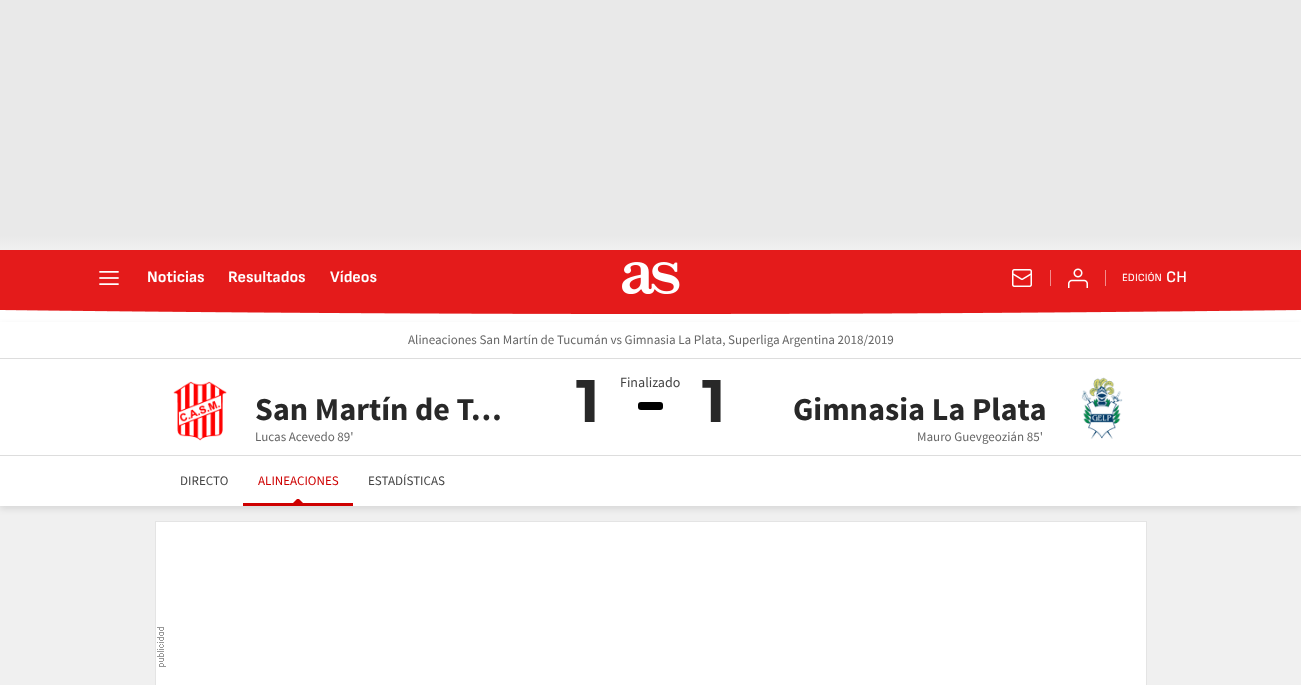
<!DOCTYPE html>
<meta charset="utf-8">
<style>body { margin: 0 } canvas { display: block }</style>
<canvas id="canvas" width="1301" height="685"></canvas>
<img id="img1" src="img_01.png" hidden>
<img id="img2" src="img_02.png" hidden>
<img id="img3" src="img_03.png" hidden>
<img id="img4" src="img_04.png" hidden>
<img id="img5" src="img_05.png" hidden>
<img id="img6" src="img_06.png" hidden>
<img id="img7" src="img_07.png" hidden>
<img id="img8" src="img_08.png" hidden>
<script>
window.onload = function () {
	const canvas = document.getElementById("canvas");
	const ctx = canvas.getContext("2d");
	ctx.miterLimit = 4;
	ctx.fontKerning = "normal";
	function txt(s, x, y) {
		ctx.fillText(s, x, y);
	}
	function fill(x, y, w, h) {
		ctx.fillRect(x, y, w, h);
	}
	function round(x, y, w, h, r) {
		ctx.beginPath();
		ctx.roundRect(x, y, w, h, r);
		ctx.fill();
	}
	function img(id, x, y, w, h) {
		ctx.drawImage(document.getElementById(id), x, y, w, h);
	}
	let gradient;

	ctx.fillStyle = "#FFFFFF";
	fill(0, 0, 1301, 685);
	gradient = ctx.createLinearGradient(651, 250, 651, 0);
	gradient.addColorStop(0, "#F0F0F0");
	gradient.addColorStop(0.06, "#E9E9E9");
	ctx.fillStyle = gradient;
	fill(0, 0, 1301, 250);
	img("img1", 0, 250, 1301, 64);
	img("img2", 99, 271, 20, 14);
	img("img3", 622, 262, 58, 32);
	img("img4", 1012, 269, 20, 18);
	ctx.fillStyle = "#F28D8D";
	fill(1050, 270, 1, 16);
	img("img5", 1068, 268, 20, 20);
	fill(1105, 270, 1, 16);
	ctx.fillStyle = "#F0F0F0";
	fill(0, 506, 1301, 179);
	ctx.fillStyle = "rgba(0, 0, 0, 0.1)";
	ctx.filter = "blur(3px)";
	ctx.beginPath();
	ctx.rect(0, 325, 1301, 184);
	ctx.fill();
	ctx.filter = "none";
	ctx.fillStyle = "#FFFFFF";
	fill(0, 322, 1301, 184);
	ctx.fillStyle = "#DDDDDD";
	fill(0, 358, 1301, 1);
	img("img6", 173, 381, 54, 60);
	ctx.fillStyle = "#000000";
	round(638, 402, 25, 8, 3);
	img("img7", 1081, 377, 42, 62);
	ctx.fillStyle = "#DDDDDD";
	fill(0, 455, 1301, 1);
	ctx.fillStyle = "#CE0000";
	ctx.beginPath();
	ctx.moveTo(306, 506);
	ctx.lineTo(290, 506);
	ctx.lineTo(297, 499);
	ctx.lineTo(299, 499);
	ctx.closePath();
	ctx.fill();
	fill(243, 503, 110, 3);
	ctx.fillStyle = "#FFFFFF";
	fill(156, 522, 990, 163);
	img("img8", 157, 627, 9, 40);
	ctx.strokeStyle = "#E4E4E4";
	ctx.strokeRect(155.5, 521.5, 991, 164);
	ctx.font = "bold 16px Sofia Sans";
	txt("Noticias", 147, 282);
	txt("Resultados", 228, 282);
	txt("Vídeos", 330, 282);
	ctx.font = "11px Sofia Sans";
	txt("EDICIÓN", 1122, 281);
	ctx.font = "600 16px Sofia Sans";
	txt("CH", 1166, 282);
	ctx.font = "13px Source Sans Pro";
	ctx.fillStyle = "#666666";
	txt("Alineaciones San Martín de Tucumán vs Gimnasia La Plata, Superliga Argentina 2018/2019", 408, 344);
	ctx.font = "bold 32px Source Sans Pro";
	ctx.fillStyle = "#282828";
	txt("San Martín de T…", 255, 420);
	ctx.font = "bold 60px Montserrat";
	txt("1", 576, 422);
	ctx.font = "13px Source Sans Pro";
	ctx.fillStyle = "#666666";
	txt("Lucas Acevedo 89'", 255, 441);
	ctx.font = "14px Source Sans Pro";
	ctx.fillStyle = "#434343";
	txt("Finalizado", 620, 387);
	ctx.font = "bold 60px Montserrat";
	ctx.fillStyle = "#282828";
	txt("1", 702, 422);
	ctx.font = "bold 32px Source Sans Pro";
	txt("Gimnasia La Plata", 793, 420);
	ctx.font = "13px Source Sans Pro";
	ctx.fillStyle = "#666666";
	txt("Mauro Guevgeozián 85'", 917, 441);
	ctx.fillStyle = "#434343";
	txt("DIRECTO", 180, 485);
	ctx.fillStyle = "#CE0000";
	txt("ALINEACIONES", 258, 485);
	ctx.fillStyle = "#434343";
	txt("ESTADÍSTICAS", 368, 485);
};
</script>
